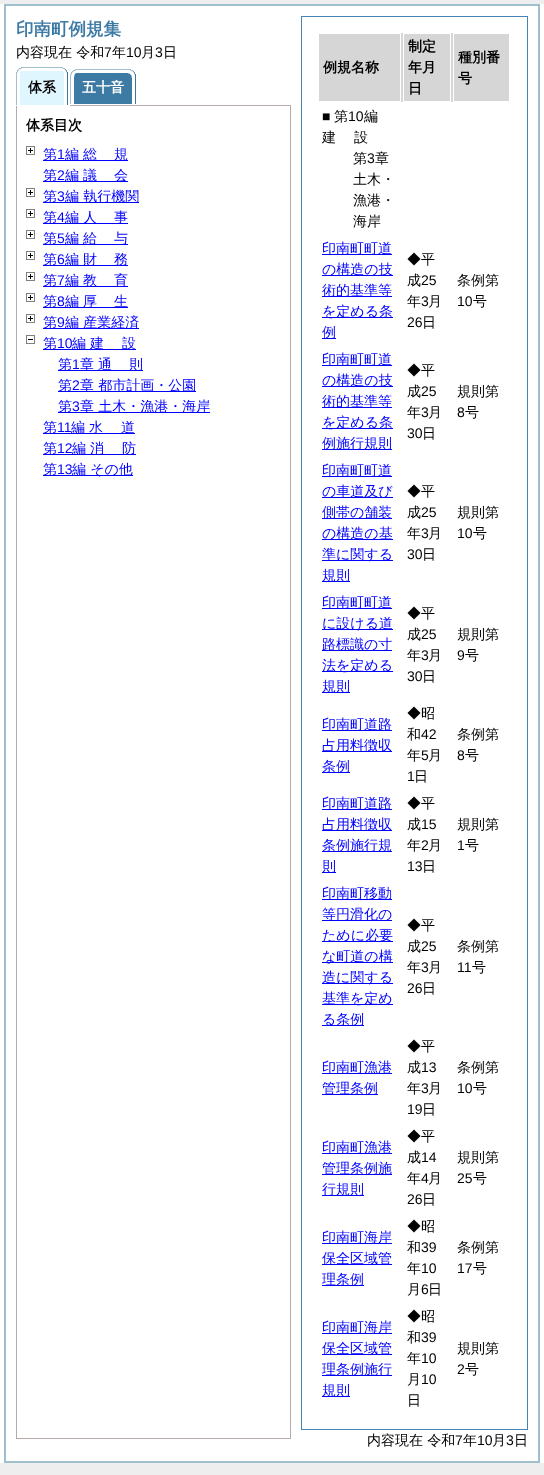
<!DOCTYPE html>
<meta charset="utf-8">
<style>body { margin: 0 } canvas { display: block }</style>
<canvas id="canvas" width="544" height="1475"></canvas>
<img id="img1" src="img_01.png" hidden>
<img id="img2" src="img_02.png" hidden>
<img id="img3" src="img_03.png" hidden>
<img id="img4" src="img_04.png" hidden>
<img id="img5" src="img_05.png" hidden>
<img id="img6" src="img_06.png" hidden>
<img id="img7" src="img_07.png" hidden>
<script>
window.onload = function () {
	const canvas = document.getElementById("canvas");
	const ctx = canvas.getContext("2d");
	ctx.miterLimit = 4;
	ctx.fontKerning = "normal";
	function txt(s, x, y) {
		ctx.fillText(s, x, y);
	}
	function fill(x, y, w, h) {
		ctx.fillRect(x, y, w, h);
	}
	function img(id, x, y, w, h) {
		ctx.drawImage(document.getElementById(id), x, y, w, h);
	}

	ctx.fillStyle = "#FFFFFF";
	fill(0, 0, 544, 1475);
	img("img1", 0, 0, 544, 1475);
	fill(0, 4, 544, 1459);
	ctx.strokeStyle = "#A0BFCC";
	ctx.lineWidth = 2;
	ctx.strokeRect(5, 5, 534, 1457);
	ctx.strokeStyle = "#B5ABA9";
	ctx.lineWidth = 1;
	ctx.strokeRect(16.5, 105.5, 274, 1333);
	fill(16, 105, 54, 1);
	img("img2", 16, 67, 6, 38);
	img("img3", 22, 67, 46, 38);
	img("img4", 70, 67, 6, 37);
	img("img5", 76, 67, 60, 37);
	img("img6", 26, 146, 9, 9);
	ctx.fillStyle = "#0000FF";
	fill(43, 160, 85, 1);
	fill(43, 181, 85, 1);
	img("img6", 26, 188, 9, 9);
	fill(43, 202, 96, 1);
	img("img6", 26, 209, 9, 9);
	fill(43, 223, 85, 1);
	img("img6", 26, 230, 9, 9);
	fill(43, 244, 85, 1);
	img("img6", 26, 251, 9, 9);
	fill(43, 265, 85, 1);
	img("img6", 26, 272, 9, 9);
	fill(43, 286, 85, 1);
	img("img6", 26, 293, 9, 9);
	fill(43, 307, 85, 1);
	img("img6", 26, 314, 9, 9);
	fill(43, 328, 96, 1);
	img("img7", 26, 335, 9, 9);
	fill(43, 349, 93, 1);
	fill(58, 370, 85, 1);
	fill(58, 391, 138, 1);
	fill(58, 412, 152, 1);
	fill(43, 433, 92, 1);
	fill(43, 454, 93, 1);
	fill(43, 475, 90, 1);
	ctx.strokeStyle = "#4682B4";
	ctx.strokeRect(301.5, 16.5, 226, 1413);
	ctx.fillStyle = "#D6D6D6";
	fill(319, 33, 190, 69);
	ctx.strokeStyle = "#FFFFFF";
	ctx.strokeRect(318.5, 33.5, 82, 68);
	ctx.strokeRect(403.5, 33.5, 47, 68);
	ctx.strokeRect(453.5, 33.5, 56, 68);
	ctx.fillStyle = "#0000FF";
	fill(322, 254, 70, 1);
	fill(322, 275, 71, 1);
	fill(322, 296, 70, 1);
	fill(322, 317, 71, 1);
	fill(322, 338, 14, 1);
	fill(322, 365, 70, 1);
	fill(322, 386, 71, 1);
	fill(322, 407, 70, 1);
	fill(322, 428, 71, 1);
	fill(322, 449, 70, 1);
	fill(322, 476, 70, 1);
	fill(322, 497, 71, 1);
	fill(322, 518, 70, 1);
	fill(322, 539, 71, 1);
	fill(322, 560, 71, 1);
	fill(322, 581, 28, 1);
	fill(322, 608, 70, 1);
	fill(322, 629, 71, 1);
	fill(322, 650, 70, 1);
	fill(322, 671, 71, 1);
	fill(322, 692, 28, 1);
	fill(322, 730, 70, 1);
	fill(322, 751, 70, 1);
	fill(322, 772, 28, 1);
	fill(322, 809, 70, 1);
	fill(322, 830, 70, 1);
	fill(322, 851, 70, 1);
	fill(322, 872, 14, 1);
	fill(322, 899, 70, 1);
	fill(322, 920, 70, 1);
	fill(322, 941, 71, 1);
	fill(322, 962, 71, 1);
	fill(322, 983, 71, 1);
	fill(322, 1004, 71, 1);
	fill(322, 1025, 42, 1);
	fill(322, 1073, 70, 1);
	fill(322, 1094, 56, 1);
	fill(322, 1153, 70, 1);
	fill(322, 1174, 70, 1);
	fill(322, 1195, 42, 1);
	fill(322, 1243, 70, 1);
	fill(322, 1264, 70, 1);
	fill(322, 1285, 42, 1);
	fill(322, 1333, 70, 1);
	fill(322, 1354, 70, 1);
	fill(322, 1375, 70, 1);
	fill(322, 1396, 28, 1);
	ctx.font = "bold 17.5px WenQuanYi Zen Hei";
	ctx.fillStyle = "#3D7AA4";
	txt("印南町例規集", 16, 35);
	ctx.font = "500 14px WenQuanYi Zen Hei";
	ctx.fillStyle = "#000000";
	txt("内容現在 令和", 16, 57);
	ctx.font = "14px Liberation Sans";
	txt("7", 104, 57);
	ctx.font = "500 14px WenQuanYi Zen Hei";
	txt("年", 112, 57);
	ctx.font = "14px Liberation Sans";
	txt("10", 126, 57);
	ctx.font = "500 14px WenQuanYi Zen Hei";
	txt("月", 141, 57);
	ctx.font = "14px Liberation Sans";
	txt("3", 155, 57);
	ctx.font = "500 14px WenQuanYi Zen Hei";
	txt("日", 163, 57);
	ctx.font = "bold 14px WenQuanYi Zen Hei";
	txt("体系", 28, 92);
	ctx.fillStyle = "#FFFFFF";
	txt("五十音", 82, 92);
	ctx.fillStyle = "#000000";
	txt("体系目次", 26, 130);
	ctx.font = "500 14px WenQuanYi Zen Hei";
	ctx.fillStyle = "#0000FF";
	txt("第", 43, 159);
	ctx.font = "14px Liberation Sans";
	txt("1", 57, 159);
	ctx.font = "500 14px WenQuanYi Zen Hei";
	txt("編", 65, 159);
	ctx.letterSpacing = "18px";
	txt("総", 83, 159);
	ctx.letterSpacing = "0px";
	txt("規", 114, 159);
	txt("第", 43, 180);
	ctx.font = "14px Liberation Sans";
	txt("2", 57, 180);
	ctx.font = "500 14px WenQuanYi Zen Hei";
	txt("編", 65, 180);
	ctx.letterSpacing = "18px";
	txt("議", 83, 180);
	ctx.letterSpacing = "0px";
	txt("会", 114, 180);
	txt("第", 43, 201);
	ctx.font = "14px Liberation Sans";
	txt("3", 57, 201);
	ctx.font = "500 14px WenQuanYi Zen Hei";
	txt("編 執行機関", 65, 201);
	txt("第", 43, 222);
	ctx.font = "14px Liberation Sans";
	txt("4", 57, 222);
	ctx.font = "500 14px WenQuanYi Zen Hei";
	txt("編", 65, 222);
	ctx.letterSpacing = "18px";
	txt("人", 83, 222);
	ctx.letterSpacing = "0px";
	txt("事", 114, 222);
	txt("第", 43, 243);
	ctx.font = "14px Liberation Sans";
	txt("5", 57, 243);
	ctx.font = "500 14px WenQuanYi Zen Hei";
	txt("編", 65, 243);
	ctx.letterSpacing = "18px";
	txt("給", 83, 243);
	ctx.letterSpacing = "0px";
	txt("与", 114, 243);
	txt("第", 43, 264);
	ctx.font = "14px Liberation Sans";
	txt("6", 57, 264);
	ctx.font = "500 14px WenQuanYi Zen Hei";
	txt("編", 65, 264);
	ctx.letterSpacing = "18px";
	txt("財", 83, 264);
	ctx.letterSpacing = "0px";
	txt("務", 114, 264);
	txt("第", 43, 285);
	ctx.font = "14px Liberation Sans";
	txt("7", 57, 285);
	ctx.font = "500 14px WenQuanYi Zen Hei";
	txt("編", 65, 285);
	ctx.letterSpacing = "18px";
	txt("教", 83, 285);
	ctx.letterSpacing = "0px";
	txt("育", 114, 285);
	txt("第", 43, 306);
	ctx.font = "14px Liberation Sans";
	txt("8", 57, 306);
	ctx.font = "500 14px WenQuanYi Zen Hei";
	txt("編", 65, 306);
	ctx.letterSpacing = "18px";
	txt("厚", 83, 306);
	ctx.letterSpacing = "0px";
	txt("生", 114, 306);
	txt("第", 43, 327);
	ctx.font = "14px Liberation Sans";
	txt("9", 57, 327);
	ctx.font = "500 14px WenQuanYi Zen Hei";
	txt("編 産業経済", 65, 327);
	txt("第", 43, 348);
	ctx.font = "14px Liberation Sans";
	txt("10", 57, 348);
	ctx.font = "500 14px WenQuanYi Zen Hei";
	txt("編", 72, 348);
	ctx.letterSpacing = "18px";
	txt("建", 90, 348);
	ctx.letterSpacing = "0px";
	txt("設", 122, 348);
	txt("第", 58, 369);
	ctx.font = "14px Liberation Sans";
	txt("1", 72, 369);
	ctx.font = "500 14px WenQuanYi Zen Hei";
	txt("章", 80, 369);
	ctx.letterSpacing = "18px";
	txt("通", 98, 369);
	ctx.letterSpacing = "0px";
	txt("則", 129, 369);
	txt("第", 58, 390);
	ctx.font = "14px Liberation Sans";
	txt("2", 72, 390);
	ctx.font = "500 14px WenQuanYi Zen Hei";
	txt("章 都市計画・公園", 80, 390);
	txt("第", 58, 411);
	ctx.font = "14px Liberation Sans";
	txt("3", 72, 411);
	ctx.font = "500 14px WenQuanYi Zen Hei";
	txt("章 土木・漁港・海岸", 80, 411);
	txt("第", 43, 432);
	ctx.font = "14px Liberation Sans";
	txt("11", 57, 432);
	ctx.font = "500 14px WenQuanYi Zen Hei";
	txt("編", 71, 432);
	ctx.letterSpacing = "18px";
	txt("水", 89, 432);
	ctx.letterSpacing = "0px";
	txt("道", 121, 432);
	txt("第", 43, 453);
	ctx.font = "14px Liberation Sans";
	txt("12", 57, 453);
	ctx.font = "500 14px WenQuanYi Zen Hei";
	txt("編", 72, 453);
	ctx.letterSpacing = "18px";
	txt("消", 90, 453);
	ctx.letterSpacing = "0px";
	txt("防", 122, 453);
	txt("第", 43, 474);
	ctx.font = "14px Liberation Sans";
	txt("13", 57, 474);
	ctx.font = "500 14px WenQuanYi Zen Hei";
	txt("編 その他", 72, 474);
	ctx.font = "bold 14px WenQuanYi Zen Hei";
	ctx.fillStyle = "#000000";
	txt("例規名称", 323, 72);
	txt("制定", 408, 51);
	txt("年月", 408, 72);
	txt("日", 408, 93);
	txt("種別番", 458, 62);
	txt("号", 458, 83);
	ctx.font = "14px Liberation Sans";
	txt("■", 322, 121);
	ctx.font = "500 14px WenQuanYi Zen Hei";
	txt("第", 334, 121);
	ctx.font = "14px Liberation Sans";
	txt("10", 348, 121);
	ctx.font = "500 14px WenQuanYi Zen Hei";
	txt("編", 364, 121);
	ctx.letterSpacing = "18px";
	txt("建", 322, 142);
	ctx.letterSpacing = "0px";
	txt("設", 354, 142);
	txt("第", 353, 163);
	ctx.font = "14px Liberation Sans";
	txt("3", 367, 163);
	ctx.font = "500 14px WenQuanYi Zen Hei";
	txt("章", 375, 163);
	txt("土木・", 353, 184);
	txt("漁港・", 353, 205);
	txt("海岸", 353, 226);
	ctx.fillStyle = "#0000FF";
	txt("印南町町道", 322, 253);
	txt("の構造の技", 322, 274);
	txt("術的基準等", 322, 295);
	txt("を定める条", 322, 316);
	txt("例", 322, 337);
	ctx.fillStyle = "#000000";
	txt("◆平", 407, 264);
	txt("成", 407, 285);
	ctx.font = "14px Liberation Sans";
	txt("25", 421, 285);
	ctx.font = "500 14px WenQuanYi Zen Hei";
	txt("年", 407, 306);
	ctx.font = "14px Liberation Sans";
	txt("3", 421, 306);
	ctx.font = "500 14px WenQuanYi Zen Hei";
	txt("月", 428, 306);
	ctx.font = "14px Liberation Sans";
	txt("26", 407, 327);
	ctx.font = "500 14px WenQuanYi Zen Hei";
	txt("日", 422, 327);
	txt("条例第", 457, 285);
	ctx.font = "14px Liberation Sans";
	txt("10", 457, 306);
	ctx.font = "500 14px WenQuanYi Zen Hei";
	txt("号", 473, 306);
	ctx.fillStyle = "#0000FF";
	txt("印南町町道", 322, 364);
	txt("の構造の技", 322, 385);
	txt("術的基準等", 322, 406);
	txt("を定める条", 322, 427);
	txt("例施行規則", 322, 448);
	ctx.fillStyle = "#000000";
	txt("◆平", 407, 375);
	txt("成", 407, 396);
	ctx.font = "14px Liberation Sans";
	txt("25", 421, 396);
	ctx.font = "500 14px WenQuanYi Zen Hei";
	txt("年", 407, 417);
	ctx.font = "14px Liberation Sans";
	txt("3", 421, 417);
	ctx.font = "500 14px WenQuanYi Zen Hei";
	txt("月", 428, 417);
	ctx.font = "14px Liberation Sans";
	txt("30", 407, 438);
	ctx.font = "500 14px WenQuanYi Zen Hei";
	txt("日", 422, 438);
	txt("規則第", 457, 396);
	ctx.font = "14px Liberation Sans";
	txt("8", 457, 417);
	ctx.font = "500 14px WenQuanYi Zen Hei";
	txt("号", 465, 417);
	ctx.fillStyle = "#0000FF";
	txt("印南町町道", 322, 475);
	txt("の車道及び", 322, 496);
	txt("側帯の舗装", 322, 517);
	txt("の構造の基", 322, 538);
	txt("準に関する", 322, 559);
	txt("規則", 322, 580);
	ctx.fillStyle = "#000000";
	txt("◆平", 407, 496);
	txt("成", 407, 517);
	ctx.font = "14px Liberation Sans";
	txt("25", 421, 517);
	ctx.font = "500 14px WenQuanYi Zen Hei";
	txt("年", 407, 538);
	ctx.font = "14px Liberation Sans";
	txt("3", 421, 538);
	ctx.font = "500 14px WenQuanYi Zen Hei";
	txt("月", 428, 538);
	ctx.font = "14px Liberation Sans";
	txt("30", 407, 559);
	ctx.font = "500 14px WenQuanYi Zen Hei";
	txt("日", 422, 559);
	txt("規則第", 457, 517);
	ctx.font = "14px Liberation Sans";
	txt("10", 457, 538);
	ctx.font = "500 14px WenQuanYi Zen Hei";
	txt("号", 473, 538);
	ctx.fillStyle = "#0000FF";
	txt("印南町町道", 322, 607);
	txt("に設ける道", 322, 628);
	txt("路標識の寸", 322, 649);
	txt("法を定める", 322, 670);
	txt("規則", 322, 691);
	ctx.fillStyle = "#000000";
	txt("◆平", 407, 618);
	txt("成", 407, 639);
	ctx.font = "14px Liberation Sans";
	txt("25", 421, 639);
	ctx.font = "500 14px WenQuanYi Zen Hei";
	txt("年", 407, 660);
	ctx.font = "14px Liberation Sans";
	txt("3", 421, 660);
	ctx.font = "500 14px WenQuanYi Zen Hei";
	txt("月", 428, 660);
	ctx.font = "14px Liberation Sans";
	txt("30", 407, 681);
	ctx.font = "500 14px WenQuanYi Zen Hei";
	txt("日", 422, 681);
	txt("規則第", 457, 639);
	ctx.font = "14px Liberation Sans";
	txt("9", 457, 660);
	ctx.font = "500 14px WenQuanYi Zen Hei";
	txt("号", 465, 660);
	ctx.fillStyle = "#0000FF";
	txt("印南町道路", 322, 729);
	txt("占用料徴収", 322, 750);
	txt("条例", 322, 771);
	ctx.fillStyle = "#000000";
	txt("◆昭", 407, 718);
	txt("和", 407, 739);
	ctx.font = "14px Liberation Sans";
	txt("42", 421, 739);
	ctx.font = "500 14px WenQuanYi Zen Hei";
	txt("年", 407, 760);
	ctx.font = "14px Liberation Sans";
	txt("5", 421, 760);
	ctx.font = "500 14px WenQuanYi Zen Hei";
	txt("月", 428, 760);
	ctx.font = "14px Liberation Sans";
	txt("1", 407, 781);
	ctx.font = "500 14px WenQuanYi Zen Hei";
	txt("日", 414, 781);
	txt("条例第", 457, 739);
	ctx.font = "14px Liberation Sans";
	txt("8", 457, 760);
	ctx.font = "500 14px WenQuanYi Zen Hei";
	txt("号", 465, 760);
	ctx.fillStyle = "#0000FF";
	txt("印南町道路", 322, 808);
	txt("占用料徴収", 322, 829);
	txt("条例施行規", 322, 850);
	txt("則", 322, 871);
	ctx.fillStyle = "#000000";
	txt("◆平", 407, 808);
	txt("成", 407, 829);
	ctx.font = "14px Liberation Sans";
	txt("15", 421, 829);
	ctx.font = "500 14px WenQuanYi Zen Hei";
	txt("年", 407, 850);
	ctx.font = "14px Liberation Sans";
	txt("2", 421, 850);
	ctx.font = "500 14px WenQuanYi Zen Hei";
	txt("月", 428, 850);
	ctx.font = "14px Liberation Sans";
	txt("13", 407, 871);
	ctx.font = "500 14px WenQuanYi Zen Hei";
	txt("日", 422, 871);
	txt("規則第", 457, 829);
	ctx.font = "14px Liberation Sans";
	txt("1", 457, 850);
	ctx.font = "500 14px WenQuanYi Zen Hei";
	txt("号", 465, 850);
	ctx.fillStyle = "#0000FF";
	txt("印南町移動", 322, 898);
	txt("等円滑化の", 322, 919);
	txt("ために必要", 322, 940);
	txt("な町道の構", 322, 961);
	txt("造に関する", 322, 982);
	txt("基準を定め", 322, 1003);
	txt("る条例", 322, 1024);
	ctx.fillStyle = "#000000";
	txt("◆平", 407, 930);
	txt("成", 407, 951);
	ctx.font = "14px Liberation Sans";
	txt("25", 421, 951);
	ctx.font = "500 14px WenQuanYi Zen Hei";
	txt("年", 407, 972);
	ctx.font = "14px Liberation Sans";
	txt("3", 421, 972);
	ctx.font = "500 14px WenQuanYi Zen Hei";
	txt("月", 428, 972);
	ctx.font = "14px Liberation Sans";
	txt("26", 407, 993);
	ctx.font = "500 14px WenQuanYi Zen Hei";
	txt("日", 422, 993);
	txt("条例第", 457, 951);
	ctx.font = "14px Liberation Sans";
	txt("11", 457, 972);
	ctx.font = "500 14px WenQuanYi Zen Hei";
	txt("号", 472, 972);
	ctx.fillStyle = "#0000FF";
	txt("印南町漁港", 322, 1072);
	txt("管理条例", 322, 1093);
	ctx.fillStyle = "#000000";
	txt("◆平", 407, 1051);
	txt("成", 407, 1072);
	ctx.font = "14px Liberation Sans";
	txt("13", 421, 1072);
	ctx.font = "500 14px WenQuanYi Zen Hei";
	txt("年", 407, 1093);
	ctx.font = "14px Liberation Sans";
	txt("3", 421, 1093);
	ctx.font = "500 14px WenQuanYi Zen Hei";
	txt("月", 428, 1093);
	ctx.font = "14px Liberation Sans";
	txt("19", 407, 1114);
	ctx.font = "500 14px WenQuanYi Zen Hei";
	txt("日", 422, 1114);
	txt("条例第", 457, 1072);
	ctx.font = "14px Liberation Sans";
	txt("10", 457, 1093);
	ctx.font = "500 14px WenQuanYi Zen Hei";
	txt("号", 473, 1093);
	ctx.fillStyle = "#0000FF";
	txt("印南町漁港", 322, 1152);
	txt("管理条例施", 322, 1173);
	txt("行規則", 322, 1194);
	ctx.fillStyle = "#000000";
	txt("◆平", 407, 1141);
	txt("成", 407, 1162);
	ctx.font = "14px Liberation Sans";
	txt("14", 421, 1162);
	ctx.font = "500 14px WenQuanYi Zen Hei";
	txt("年", 407, 1183);
	ctx.font = "14px Liberation Sans";
	txt("4", 421, 1183);
	ctx.font = "500 14px WenQuanYi Zen Hei";
	txt("月", 428, 1183);
	ctx.font = "14px Liberation Sans";
	txt("26", 407, 1204);
	ctx.font = "500 14px WenQuanYi Zen Hei";
	txt("日", 422, 1204);
	txt("規則第", 457, 1162);
	ctx.font = "14px Liberation Sans";
	txt("25", 457, 1183);
	ctx.font = "500 14px WenQuanYi Zen Hei";
	txt("号", 473, 1183);
	ctx.fillStyle = "#0000FF";
	txt("印南町海岸", 322, 1242);
	txt("保全区域管", 322, 1263);
	txt("理条例", 322, 1284);
	ctx.fillStyle = "#000000";
	txt("◆昭", 407, 1231);
	txt("和", 407, 1252);
	ctx.font = "14px Liberation Sans";
	txt("39", 421, 1252);
	ctx.font = "500 14px WenQuanYi Zen Hei";
	txt("年", 407, 1273);
	ctx.font = "14px Liberation Sans";
	txt("10", 421, 1273);
	ctx.font = "500 14px WenQuanYi Zen Hei";
	txt("月", 407, 1294);
	ctx.font = "14px Liberation Sans";
	txt("6", 421, 1294);
	ctx.font = "500 14px WenQuanYi Zen Hei";
	txt("日", 428, 1294);
	txt("条例第", 457, 1252);
	ctx.font = "14px Liberation Sans";
	txt("17", 457, 1273);
	ctx.font = "500 14px WenQuanYi Zen Hei";
	txt("号", 473, 1273);
	ctx.fillStyle = "#0000FF";
	txt("印南町海岸", 322, 1332);
	txt("保全区域管", 322, 1353);
	txt("理条例施行", 322, 1374);
	txt("規則", 322, 1395);
	ctx.fillStyle = "#000000";
	txt("◆昭", 407, 1321);
	txt("和", 407, 1342);
	ctx.font = "14px Liberation Sans";
	txt("39", 421, 1342);
	ctx.font = "500 14px WenQuanYi Zen Hei";
	txt("年", 407, 1363);
	ctx.font = "14px Liberation Sans";
	txt("10", 421, 1363);
	ctx.font = "500 14px WenQuanYi Zen Hei";
	txt("月", 407, 1384);
	ctx.font = "14px Liberation Sans";
	txt("10", 421, 1384);
	ctx.font = "500 14px WenQuanYi Zen Hei";
	txt("日", 407, 1405);
	txt("規則第", 457, 1353);
	ctx.font = "14px Liberation Sans";
	txt("2", 457, 1374);
	ctx.font = "500 14px WenQuanYi Zen Hei";
	txt("号", 465, 1374);
	txt("内容現在 令和", 367, 1445);
	ctx.font = "14px Liberation Sans";
	txt("7", 455, 1445);
	ctx.font = "500 14px WenQuanYi Zen Hei";
	txt("年", 463, 1445);
	ctx.font = "14px Liberation Sans";
	txt("10", 477, 1445);
	ctx.font = "500 14px WenQuanYi Zen Hei";
	txt("月", 492, 1445);
	ctx.font = "14px Liberation Sans";
	txt("3", 506, 1445);
	ctx.font = "500 14px WenQuanYi Zen Hei";
	txt("日", 514, 1445);
};
</script>
